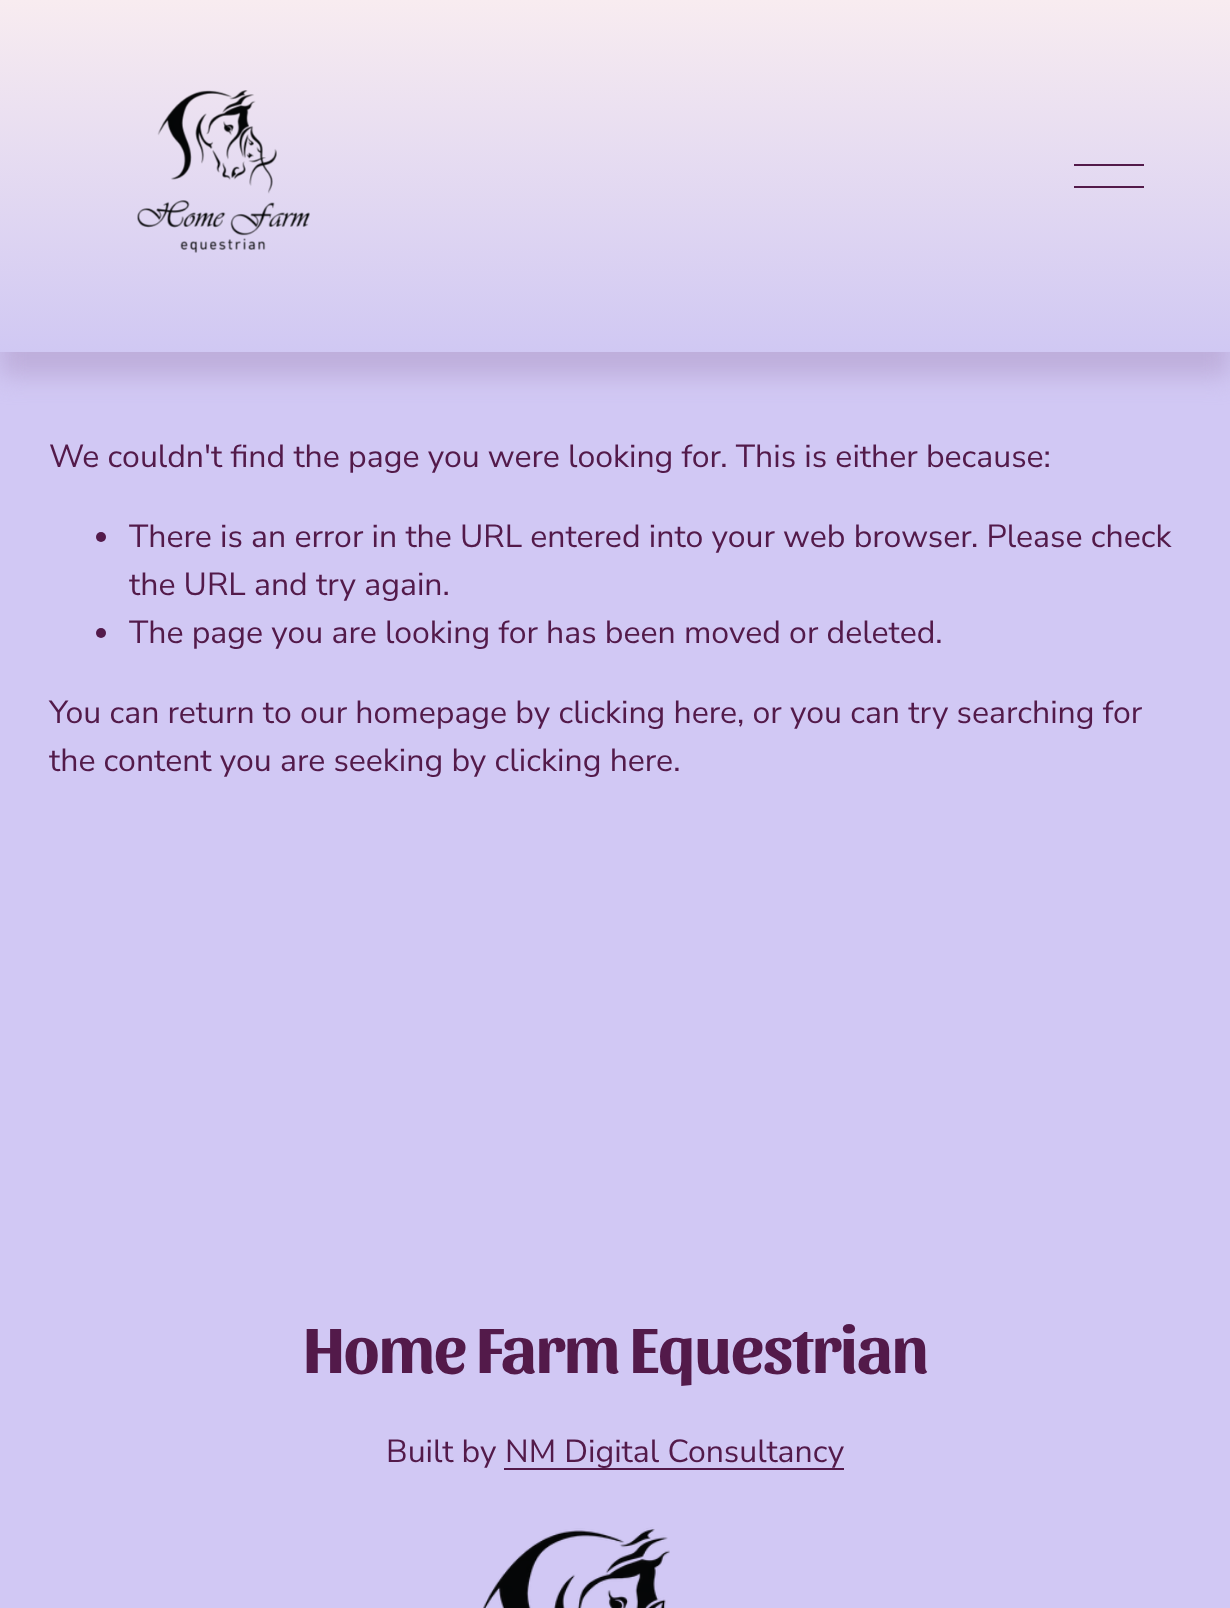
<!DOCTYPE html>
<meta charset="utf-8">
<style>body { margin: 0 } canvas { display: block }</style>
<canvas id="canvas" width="1230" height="1608"></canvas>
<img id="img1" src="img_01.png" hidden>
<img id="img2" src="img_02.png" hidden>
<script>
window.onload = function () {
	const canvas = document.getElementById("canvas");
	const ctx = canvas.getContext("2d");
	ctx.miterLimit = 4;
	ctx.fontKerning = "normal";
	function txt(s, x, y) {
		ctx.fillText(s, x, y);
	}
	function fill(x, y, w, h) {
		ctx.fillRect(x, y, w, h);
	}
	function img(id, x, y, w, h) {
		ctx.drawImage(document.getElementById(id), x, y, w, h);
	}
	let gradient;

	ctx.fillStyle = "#D1C8F4";
	fill(0, 0, 1230, 1608);
	ctx.fillStyle = "#BEAEDB";
	ctx.filter = "blur(12px)";
	ctx.beginPath();
	ctx.rect(0, 24, 1230, 352);
	ctx.fill();
	ctx.filter = "none";
	gradient = ctx.createLinearGradient(615, 0, 615, 352);
	gradient.addColorStop(0, "#F8ECF0");
	gradient.addColorStop(1, "#D0C8F3");
	ctx.fillStyle = gradient;
	fill(0, 0, 1230, 352);
	img("img1", 137, 90, 173, 163);
	ctx.fillStyle = "#531A4A";
	fill(1074, 164, 70, 2);
	fill(1074, 186, 70, 2);
	ctx.beginPath();
	ctx.arc(101, 537, 5, 0, Math.PI * 2);
	ctx.fill();
	ctx.beginPath();
	ctx.arc(101, 633, 5, 0, Math.PI * 2);
	ctx.fill();
	fill(504, 1468, 340, 2);
	img("img2", 483, 1527, 187, 81);
	ctx.font = "32px Nunito Sans";
	txt("We couldn't find the page you were looking for. This is either because:", 49, 467);
	txt("There is an error in the URL entered into your web browser. Please check", 129, 547);
	txt("the URL and try again.", 129, 595);
	txt("The page you are looking for has been moved or deleted.", 129, 643);
	txt("You can return to our homepage by clicking here, or you can try searching for", 49, 723);
	txt("the content you are seeking by clicking here.", 49, 771);
	ctx.letterSpacing = "-1.3px";
	ctx.font = "bold 66.75px Sansita";
	txt("Home Farm Equestrian", 303, 1373);
	ctx.letterSpacing = "0px";
	ctx.font = "32px Nunito Sans";
	txt("Built by", 386, 1462);
	txt("NM Digital Consultancy", 505, 1462);
};
</script>
